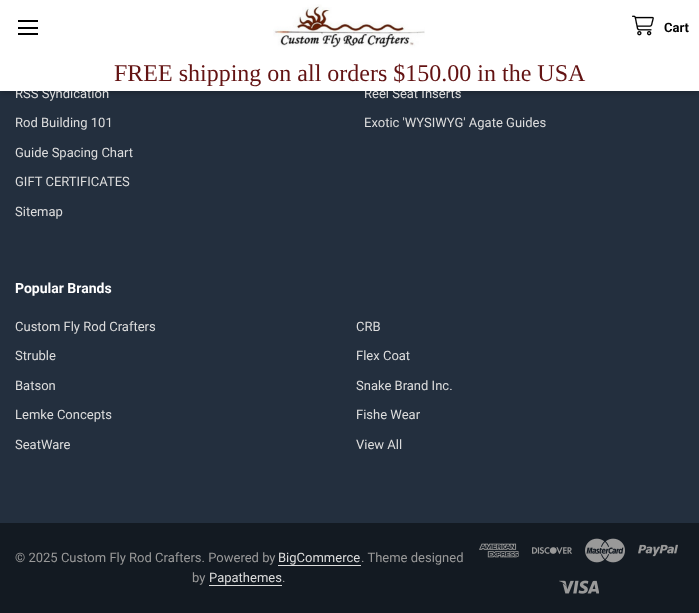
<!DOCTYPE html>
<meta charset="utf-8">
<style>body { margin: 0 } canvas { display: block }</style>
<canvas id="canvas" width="699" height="613"></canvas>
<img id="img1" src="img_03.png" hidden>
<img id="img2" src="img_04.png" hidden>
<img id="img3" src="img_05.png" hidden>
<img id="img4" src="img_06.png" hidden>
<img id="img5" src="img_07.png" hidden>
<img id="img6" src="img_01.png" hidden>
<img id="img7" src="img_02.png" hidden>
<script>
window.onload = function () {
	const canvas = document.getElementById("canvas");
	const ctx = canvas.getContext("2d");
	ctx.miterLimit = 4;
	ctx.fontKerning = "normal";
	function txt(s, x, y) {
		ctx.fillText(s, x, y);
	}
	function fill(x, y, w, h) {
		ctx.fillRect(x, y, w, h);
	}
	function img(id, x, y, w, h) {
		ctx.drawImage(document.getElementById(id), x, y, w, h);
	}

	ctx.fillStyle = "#232F3E";
	fill(0, 0, 699, 613);
	ctx.fillStyle = "rgba(0, 0, 0, 0.2)";
	ctx.filter = "blur(2.5px)";
	ctx.beginPath();
	ctx.rect(0, 2, 699, 91);
	ctx.fill();
	ctx.filter = "none";
	ctx.fillStyle = "#131A22";
	fill(0, 523, 699, 90);
	ctx.fillStyle = "#DDDDDD";
	fill(278, 565, 83, 1);
	fill(209, 585, 73, 1);
	img("img1", 479, 543, 40, 15);
	img("img2", 532, 547, 40, 7);
	img("img3", 585, 538, 40, 25);
	img("img4", 638, 544, 40, 13);
	img("img5", 559, 580, 40, 14);
	ctx.font = "13px Roboto";
	txt("RSS Syndication", 15, 98);
	txt("Rod Building 101", 15, 127);
	txt("Guide Spacing Chart", 15, 157);
	txt("GIFT CERTIFICATES", 15, 186);
	txt("Sitemap", 15, 216);
	txt("Reel Seat Inserts", 364, 98);
	ctx.fillStyle = "#FFFFFF";
	fill(0, 0, 699, 91);
	ctx.fillStyle = "#000000";
	fill(18, 33, 20, 2);
	fill(18, 20, 20, 2);
	fill(18, 27, 20, 2);
	img("img6", 273, 4, 152, 44);
	img("img7", 632, 15, 22, 21);
	ctx.font = "bold 13px Roboto";
	txt("Cart", 664, 32);
	ctx.font = "24px Liberation Serif";
	ctx.fillStyle = "#631313";
	txt("FREE shipping on all orders $150.00 in the USA", 114, 81);
	ctx.font = "13px Roboto";
	ctx.fillStyle = "#DDDDDD";
	txt("Exotic 'WYSIWYG' Agate Guides", 364, 127);
	ctx.font = "bold 14px Roboto";
	ctx.fillStyle = "#FFFFFF";
	txt("Popular Brands", 15, 293);
	ctx.font = "13px Roboto";
	ctx.fillStyle = "#DDDDDD";
	txt("Custom Fly Rod Crafters", 15, 331);
	txt("CRB", 356, 331);
	txt("Struble", 15, 360);
	txt("Flex Coat", 356, 360);
	txt("Batson", 15, 390);
	txt("Snake Brand Inc.", 356, 390);
	txt("Lemke Concepts", 15, 419);
	txt("Fishe Wear", 356, 419);
	txt("SeatWare", 15, 449);
	txt("View All", 356, 449);
	ctx.fillStyle = "#999999";
	txt("© 2025 Custom Fly Rod Crafters. Powered by", 15, 562);
	ctx.fillStyle = "#DDDDDD";
	txt("BigCommerce", 278, 562);
	ctx.fillStyle = "#999999";
	txt(". Theme designed", 361, 562);
	txt("by", 192, 582);
	ctx.fillStyle = "#DDDDDD";
	txt("Papathemes", 209, 582);
	ctx.fillStyle = "#999999";
	txt(".", 282, 582);
};
</script>
